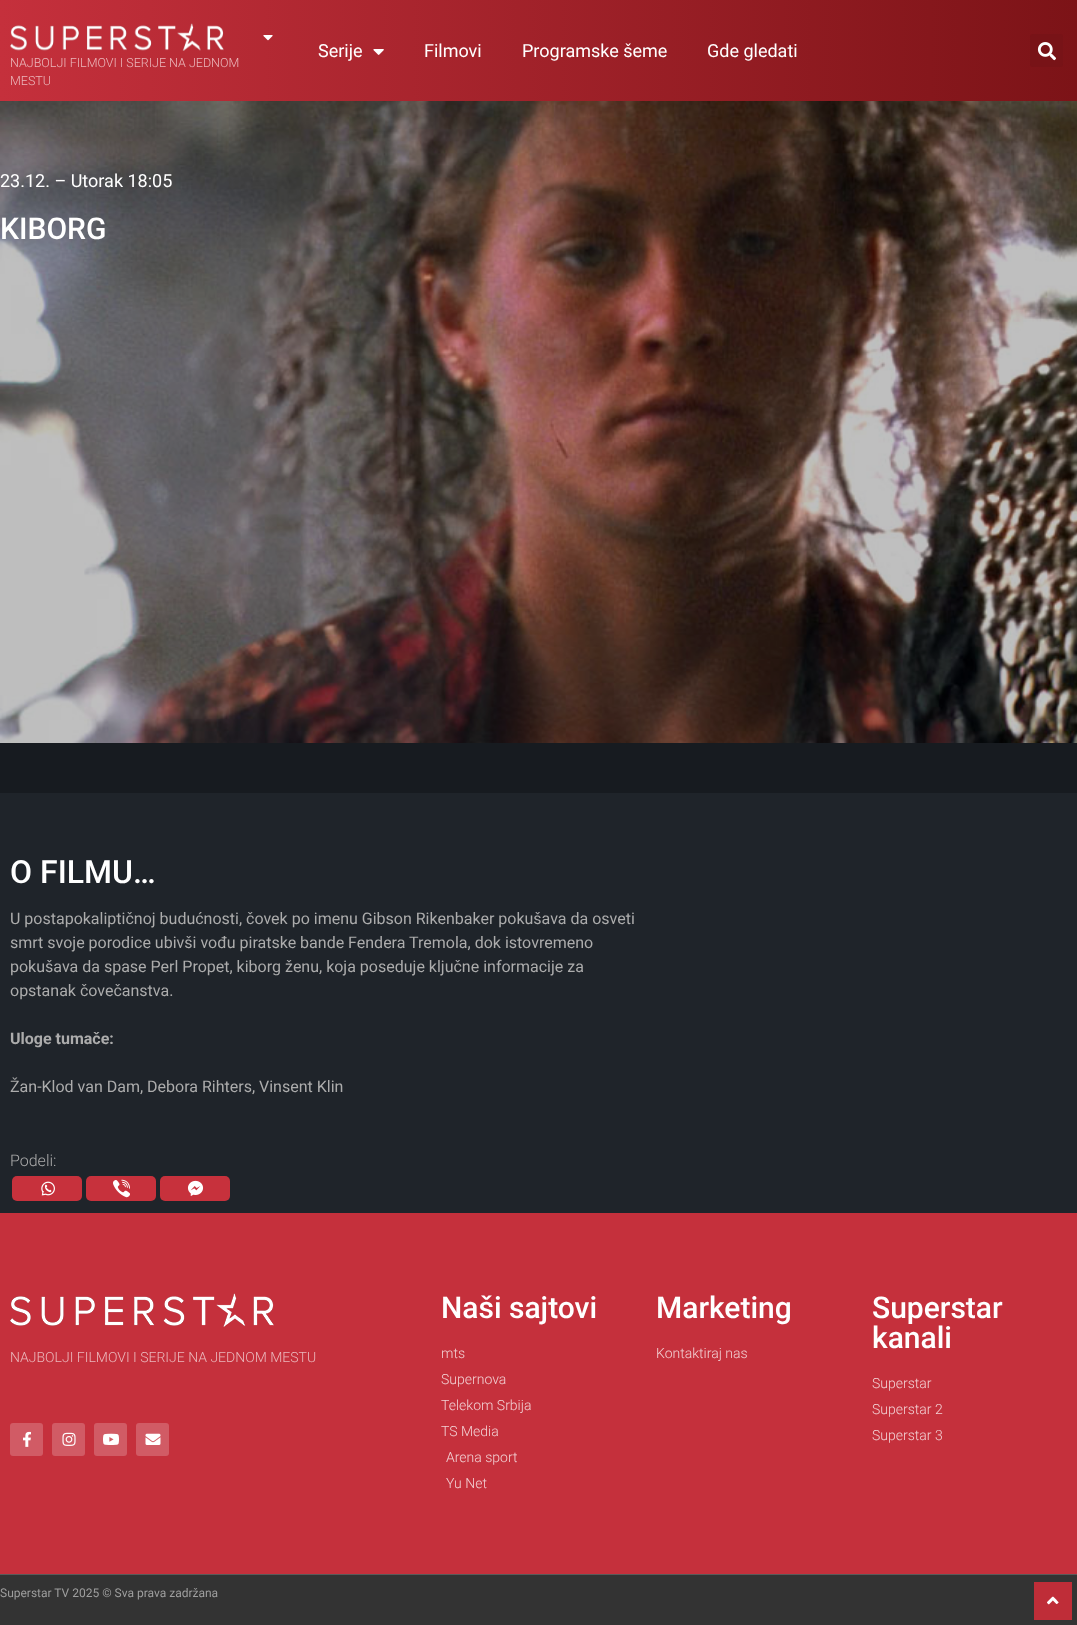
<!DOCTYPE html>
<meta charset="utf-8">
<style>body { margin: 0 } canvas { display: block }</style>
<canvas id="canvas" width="1077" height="1625"></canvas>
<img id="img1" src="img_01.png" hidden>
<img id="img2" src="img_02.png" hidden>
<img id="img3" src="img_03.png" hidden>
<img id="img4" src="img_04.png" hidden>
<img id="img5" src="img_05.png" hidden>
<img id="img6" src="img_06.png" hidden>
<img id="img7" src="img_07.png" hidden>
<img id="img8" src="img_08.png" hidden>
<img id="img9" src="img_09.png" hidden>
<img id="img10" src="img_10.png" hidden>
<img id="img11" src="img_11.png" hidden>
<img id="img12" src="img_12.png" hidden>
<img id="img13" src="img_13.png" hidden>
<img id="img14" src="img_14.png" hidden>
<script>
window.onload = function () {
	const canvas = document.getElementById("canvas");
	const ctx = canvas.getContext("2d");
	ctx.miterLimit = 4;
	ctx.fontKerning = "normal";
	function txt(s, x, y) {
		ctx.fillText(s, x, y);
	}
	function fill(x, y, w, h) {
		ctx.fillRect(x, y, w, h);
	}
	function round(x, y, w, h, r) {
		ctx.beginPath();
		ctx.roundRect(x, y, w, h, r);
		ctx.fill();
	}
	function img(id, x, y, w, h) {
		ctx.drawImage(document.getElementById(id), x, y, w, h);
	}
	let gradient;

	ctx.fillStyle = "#1F242A";
	fill(0, 0, 1077, 1625);
	ctx.fillStyle = "#171B20";
	fill(0, 743, 1077, 50);
	gradient = ctx.createLinearGradient(0, 51, 1077, 50);
	gradient.addColorStop(0, "#C5303C");
	gradient.addColorStop(1, "#7C1317");
	ctx.fillStyle = gradient;
	fill(0, 0, 1077, 101);
	img("img1", 373, 49, 11, 6);
	ctx.fillStyle = "#781317";
	round(1030, 34, 33, 33, 3);
	img("img2", 1037, 42, 19, 19);
	img("img3", 10, 23, 214, 28);
	img("img4", 263, 35, 10, 6);
	img("img5", 0, 101, 1077, 642);
	ctx.fillStyle = "#C7313C";
	round(12, 1176, 70, 25, 5);
	img("img6", 41, 1181, 14, 15);
	round(86, 1176, 70, 25, 5);
	img("img7", 113, 1179, 17, 19);
	round(160, 1176, 70, 25, 5);
	img("img8", 187, 1180, 17, 16);
	ctx.fillStyle = "#C5303C";
	fill(0, 1213, 1077, 361);
	img("img9", 10, 1293, 264, 34);
	ctx.fillStyle = "#D15B65";
	round(10, 1423, 33, 33, 3);
	img("img10", 23, 1431, 8, 16);
	round(52, 1423, 33, 33, 3);
	img("img11", 62, 1432, 14, 14);
	round(94, 1423, 33, 33, 3);
	img("img12", 103, 1433, 16, 12);
	round(136, 1423, 33, 33, 3);
	img("img13", 145, 1433, 16, 12);
	ctx.fillStyle = "#333333";
	fill(0, 1575, 1077, 50);
	ctx.fillStyle = "#5A5A5A";
	fill(0, 1574, 1077, 1);
	ctx.fillStyle = "#BF2D38";
	fill(1034, 1582, 38, 38);
	img("img14", 1047, 1596, 12, 9);
	ctx.font = "18px Roboto";
	ctx.fillStyle = "#FFFFFF";
	txt("Serije", 318, 57);
	txt("Filmovi", 424, 57);
	txt("Programske šeme", 522, 57);
	txt("Gde gledati", 707, 57);
	ctx.font = "300 12.5px Roboto";
	ctx.fillStyle = "#EBB7BB";
	txt("NAJBOLJI FILMOVI I SERIJE NA JEDNOM", 10, 67);
	txt("MESTU", 10, 85);
	ctx.font = "18px Roboto";
	ctx.fillStyle = "#FFFFFF";
	txt("23.12. – Utorak 18:05", 0, 187);
	ctx.font = "500 30px Roboto";
	txt("KIBORG", 0, 239);
	ctx.font = "500 32px Roboto";
	txt("O FILMU…", 10, 883);
	ctx.font = "16px Roboto";
	ctx.fillStyle = "#ACACAC";
	txt("U postapokaliptičnoj budućnosti, čovek po imenu Gibson Rikenbaker pokušava da osveti", 10, 924);
	txt("smrt svoje porodice ubivši vođu piratske bande Fendera Tremola, dok istovremeno", 10, 948);
	txt("pokušava da spase Perl Propet, kiborg ženu, koja poseduje ključne informacije za", 10, 972);
	txt("opstanak čovečanstva.", 10, 996);
	ctx.font = "bold 16px Roboto";
	txt("Uloge tumače:", 10, 1044);
	ctx.font = "16px Roboto";
	txt("Žan-Klod van Dam, Debora Rihters, Vinsent Klin", 10, 1092);
	ctx.font = "300 16px Roboto";
	txt("Podeli:", 10, 1166);
	ctx.font = "300 14px Roboto";
	ctx.fillStyle = "#EBB7BB";
	txt("NAJBOLJI FILMOVI I SERIJE NA JEDNOM MESTU", 10, 1362);
	ctx.font = "500 30px Roboto";
	ctx.fillStyle = "#FFFFFF";
	txt("Naši sajtovi", 441, 1318);
	ctx.font = "300 14px Roboto";
	ctx.fillStyle = "#F2D1D4";
	txt("mts", 441, 1358);
	txt("Supernova", 441, 1384);
	txt("Telekom Srbija", 441, 1410);
	txt("TS Media", 441, 1436);
	txt("Arena sport", 446, 1462);
	txt("Yu Net", 446, 1488);
	ctx.font = "500 30px Roboto";
	ctx.fillStyle = "#FFFFFF";
	txt("Marketing", 656, 1318);
	ctx.font = "300 14px Roboto";
	ctx.fillStyle = "#F2D1D4";
	txt("Kontaktiraj nas", 656, 1358);
	ctx.font = "500 30px Roboto";
	ctx.fillStyle = "#FFFFFF";
	txt("Superstar", 872, 1318);
	txt("kanali", 872, 1348);
	ctx.font = "300 14px Roboto";
	ctx.fillStyle = "#F2D1D4";
	txt("Superstar", 872, 1388);
	txt("Superstar 2", 872, 1414);
	txt("Superstar 3", 872, 1440);
	ctx.font = "12px Roboto";
	ctx.fillStyle = "#9E9E9E";
	txt("Superstar TV 2025 © Sva prava zadržana", 0, 1597);
};
</script>
